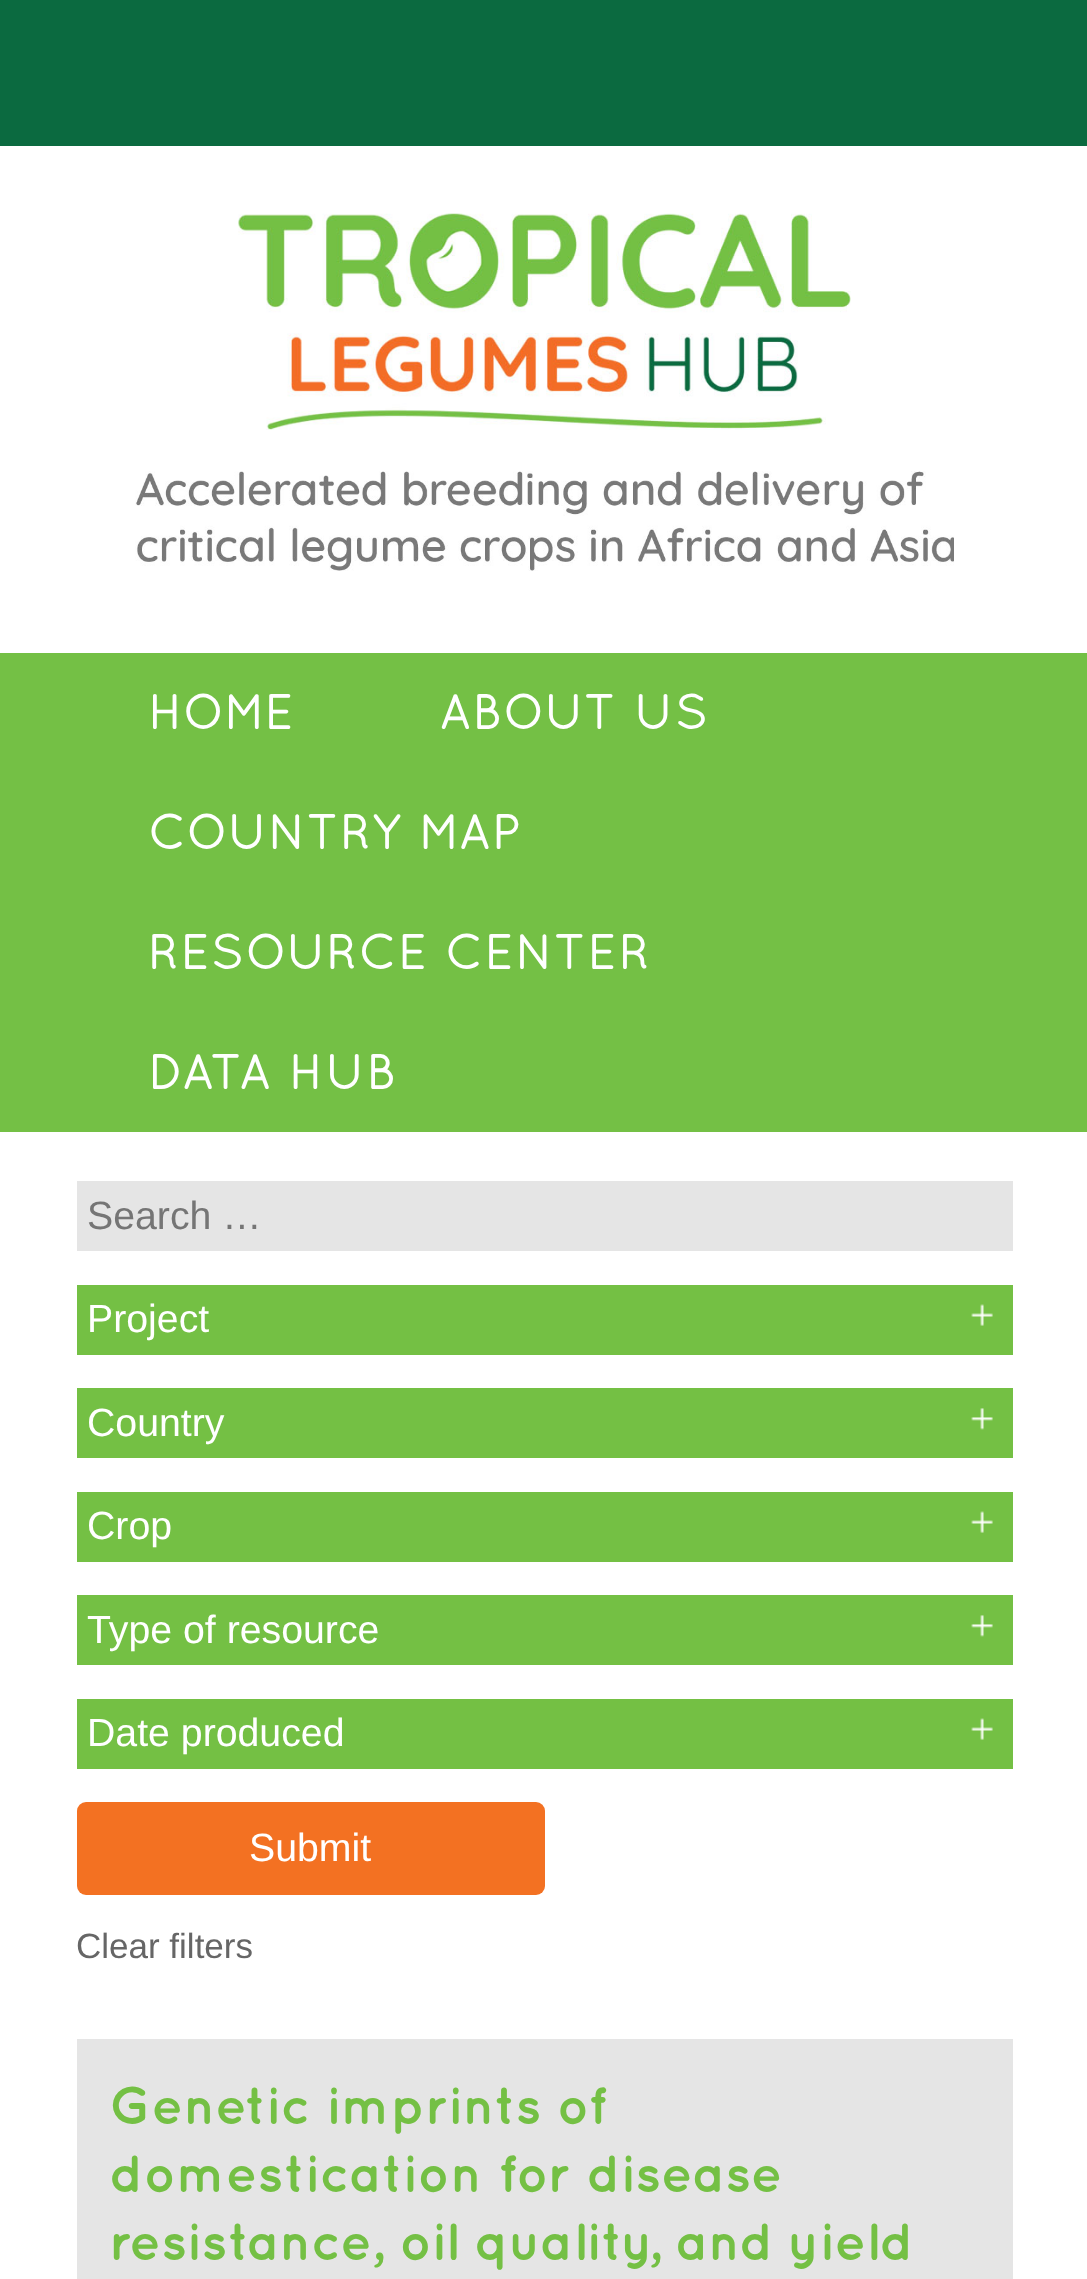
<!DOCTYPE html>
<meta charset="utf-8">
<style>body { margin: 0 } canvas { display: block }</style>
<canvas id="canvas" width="1087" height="2279"></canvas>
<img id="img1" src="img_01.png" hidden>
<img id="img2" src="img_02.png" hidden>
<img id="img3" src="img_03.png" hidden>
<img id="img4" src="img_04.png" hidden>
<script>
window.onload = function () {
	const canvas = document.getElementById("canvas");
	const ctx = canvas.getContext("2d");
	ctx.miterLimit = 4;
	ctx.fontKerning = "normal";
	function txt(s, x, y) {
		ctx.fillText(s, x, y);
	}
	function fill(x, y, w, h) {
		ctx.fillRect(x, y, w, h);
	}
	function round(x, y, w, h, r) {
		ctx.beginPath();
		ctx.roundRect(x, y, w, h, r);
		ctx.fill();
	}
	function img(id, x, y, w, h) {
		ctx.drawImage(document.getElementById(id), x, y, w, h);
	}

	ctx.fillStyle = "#FFFFFF";
	fill(0, 0, 1087, 2279);
	ctx.fillStyle = "#0B6A40";
	fill(0, 0, 1087, 146);
	img("img1", 238, 213, 613, 217);
	img("img2", 135, 471, 819, 100);
	ctx.fillStyle = "#74C045";
	fill(0, 653, 1087, 479);
	ctx.fillStyle = "#E5E5E5";
	fill(77, 1181, 936, 70);
	ctx.fillStyle = "#74C044";
	fill(77, 1285, 936, 70);
	img("img3", 971, 1304, 22, 22);
	fill(77, 1388, 936, 70);
	img("img4", 971, 1408, 22, 22);
	fill(77, 1492, 936, 70);
	img("img3", 971, 1511, 22, 22);
	fill(77, 1595, 936, 70);
	img("img4", 971, 1615, 22, 22);
	fill(77, 1699, 936, 70);
	img("img3", 971, 1718, 22, 22);
	ctx.fillStyle = "#F37122";
	round(77, 1802, 468, 93, 9);
	ctx.fillStyle = "#E5E5E5";
	fill(77, 2039, 936, 240);
	ctx.letterSpacing = "2.25px";
	ctx.font = "bold 48px Quicksand";
	ctx.fillStyle = "#FFFFFF";
	txt("HOME", 148, 729);
	txt("ABOUT US", 439, 729);
	txt("COUNTRY MAP", 148, 849);
	txt("RESOURCE CENTER", 148, 969);
	txt("DATA HUB", 148, 1089);
	ctx.letterSpacing = "0px";
	ctx.font = "39.25px Liberation Sans";
	ctx.fillStyle = "#757575";
	txt("Search …", 87, 1229);
	ctx.fillStyle = "#FFFFFF";
	txt("Project", 87, 1332);
	txt("Country", 87, 1436);
	txt("Crop", 87, 1539);
	txt("Type of resource", 87, 1643);
	txt("Date produced", 87, 1746);
	txt("Submit", 249, 1861);
	ctx.font = "35px Liberation Sans";
	ctx.fillStyle = "#666666";
	txt("Clear filters", 76, 1958);
	ctx.font = "bold 52.25px 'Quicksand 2'";
	ctx.fillStyle = "#74C044";
	txt("Genetic imprints of", 109, 2124);
	txt("domestication for disease", 109, 2192);
	txt("resistance, oil quality, and yield", 109, 2260);
};
</script>
